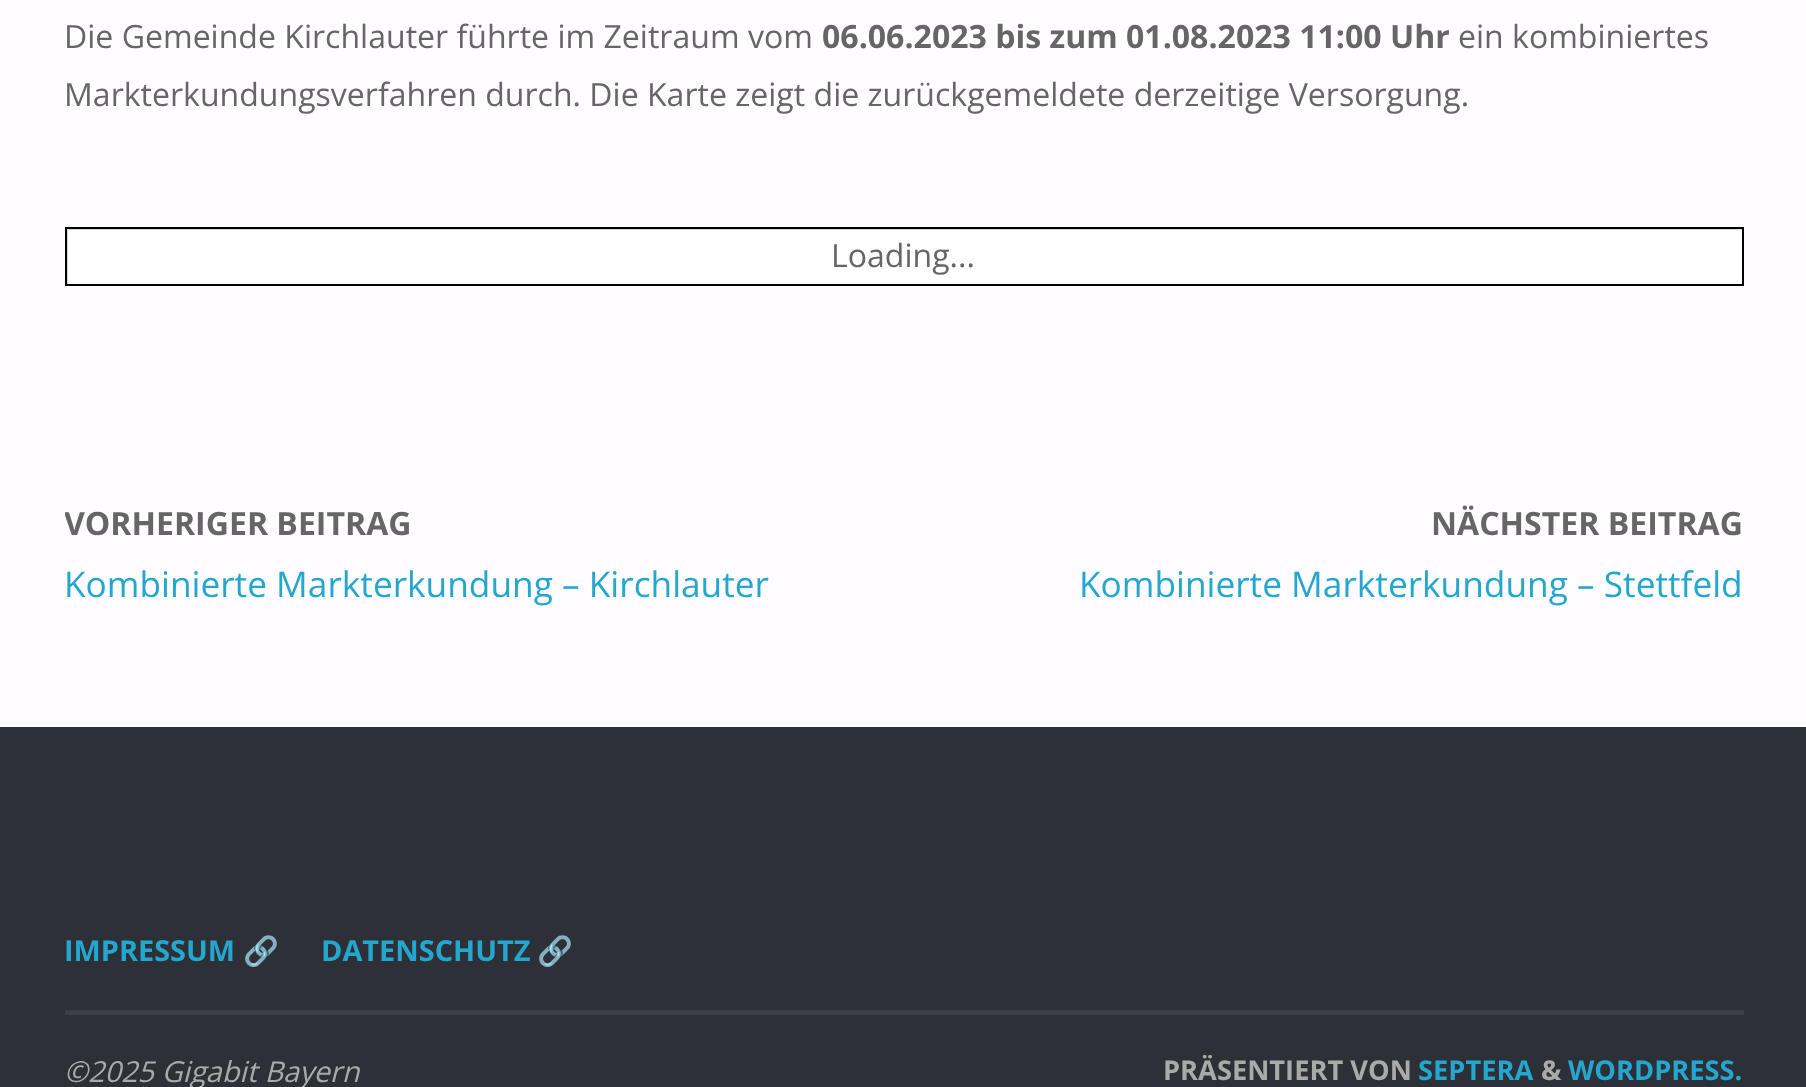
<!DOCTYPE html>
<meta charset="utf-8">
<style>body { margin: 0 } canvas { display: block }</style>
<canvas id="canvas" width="1806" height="1087"></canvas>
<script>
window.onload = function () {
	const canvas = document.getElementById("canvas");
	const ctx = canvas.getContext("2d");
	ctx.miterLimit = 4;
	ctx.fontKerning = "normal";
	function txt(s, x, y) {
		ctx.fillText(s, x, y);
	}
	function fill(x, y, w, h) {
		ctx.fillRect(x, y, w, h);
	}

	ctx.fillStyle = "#FFFDFF";
	fill(0, 0, 1806, 1087);
	ctx.fillStyle = "#D3D3D3";
	ctx.beginPath();
	ctx.rect(66, 228, 1677, 57);
	ctx.fill();
	ctx.strokeStyle = "#000000";
	ctx.lineWidth = 2;
	ctx.stroke();
	ctx.fillStyle = "#FFFFFF";
	fill(68, 230, 1674, 54);
	ctx.fillStyle = "#2E3038";
	fill(0, 727, 1806, 360);
	ctx.fillStyle = "#3D3F47";
	fill(65, 1010, 1679, 5);
	ctx.font = "32.05px Open Sans";
	ctx.fillStyle = "#666666";
	txt("Die Gemeinde Kirchlauter führte im Zeitraum vom", 64, 48);
	ctx.font = "bold 32.05px Open Sans";
	txt("06.06.2023 bis zum 01.08.2023 11:00 Uhr", 822, 48);
	ctx.font = "32.05px Open Sans";
	txt("ein kombiniertes", 1458, 48);
	txt("Markterkundungsverfahren durch. Die Karte zeigt die zurückgemeldete derzeitige Versorgung.", 64, 106);
	txt("Loading...", 831, 267);
	ctx.save();
	ctx.beginPath();
	ctx.rect(65, 446, 1679, 218);
	ctx.clip();
	ctx.font = "bold 32.05px Open Sans";
	txt("VORHERIGER BEITRAG", 64, 535);
	ctx.restore();
	ctx.font = "35.25px Open Sans";
	ctx.fillStyle = "#24A7CF";
	txt("Kombinierte Markterkundung – Kirchlauter", 64, 597);
	ctx.font = "bold 32.05px Open Sans";
	ctx.fillStyle = "#666666";
	txt("NÄCHSTER BEITRAG", 1431, 535);
	ctx.font = "35.25px Open Sans";
	ctx.fillStyle = "#24A7CF";
	txt("Kombinierte Markterkundung – Stettfeld", 1079, 597);
	ctx.font = "bold 28.9px Open Sans";
	txt("IMPRESSUM", 64, 961);
	ctx.font = "bold 28.9px Noto Color Emoji";
	txt("🔗", 243, 961);
	ctx.font = "bold 28.9px Open Sans";
	txt("DATENSCHUTZ", 321, 961);
	ctx.font = "bold 28.9px Noto Color Emoji";
	txt("🔗", 537, 961);
	ctx.font = "italic 28.9px Open Sans";
	ctx.fillStyle = "#AAAAAA";
	txt("©2025 Gigabit Bayern", 64, 1082);
	ctx.font = "bold 27.25px Open Sans";
	txt("PRÄSENTIERT VON", 1163, 1080);
	ctx.fillStyle = "#24A7CF";
	txt("SEPTERA", 1418, 1080);
	ctx.fillStyle = "#AAAAAA";
	txt("&", 1541, 1080);
	ctx.fillStyle = "#24A7CF";
	txt("WORDPRESS.", 1568, 1080);
};
</script>
